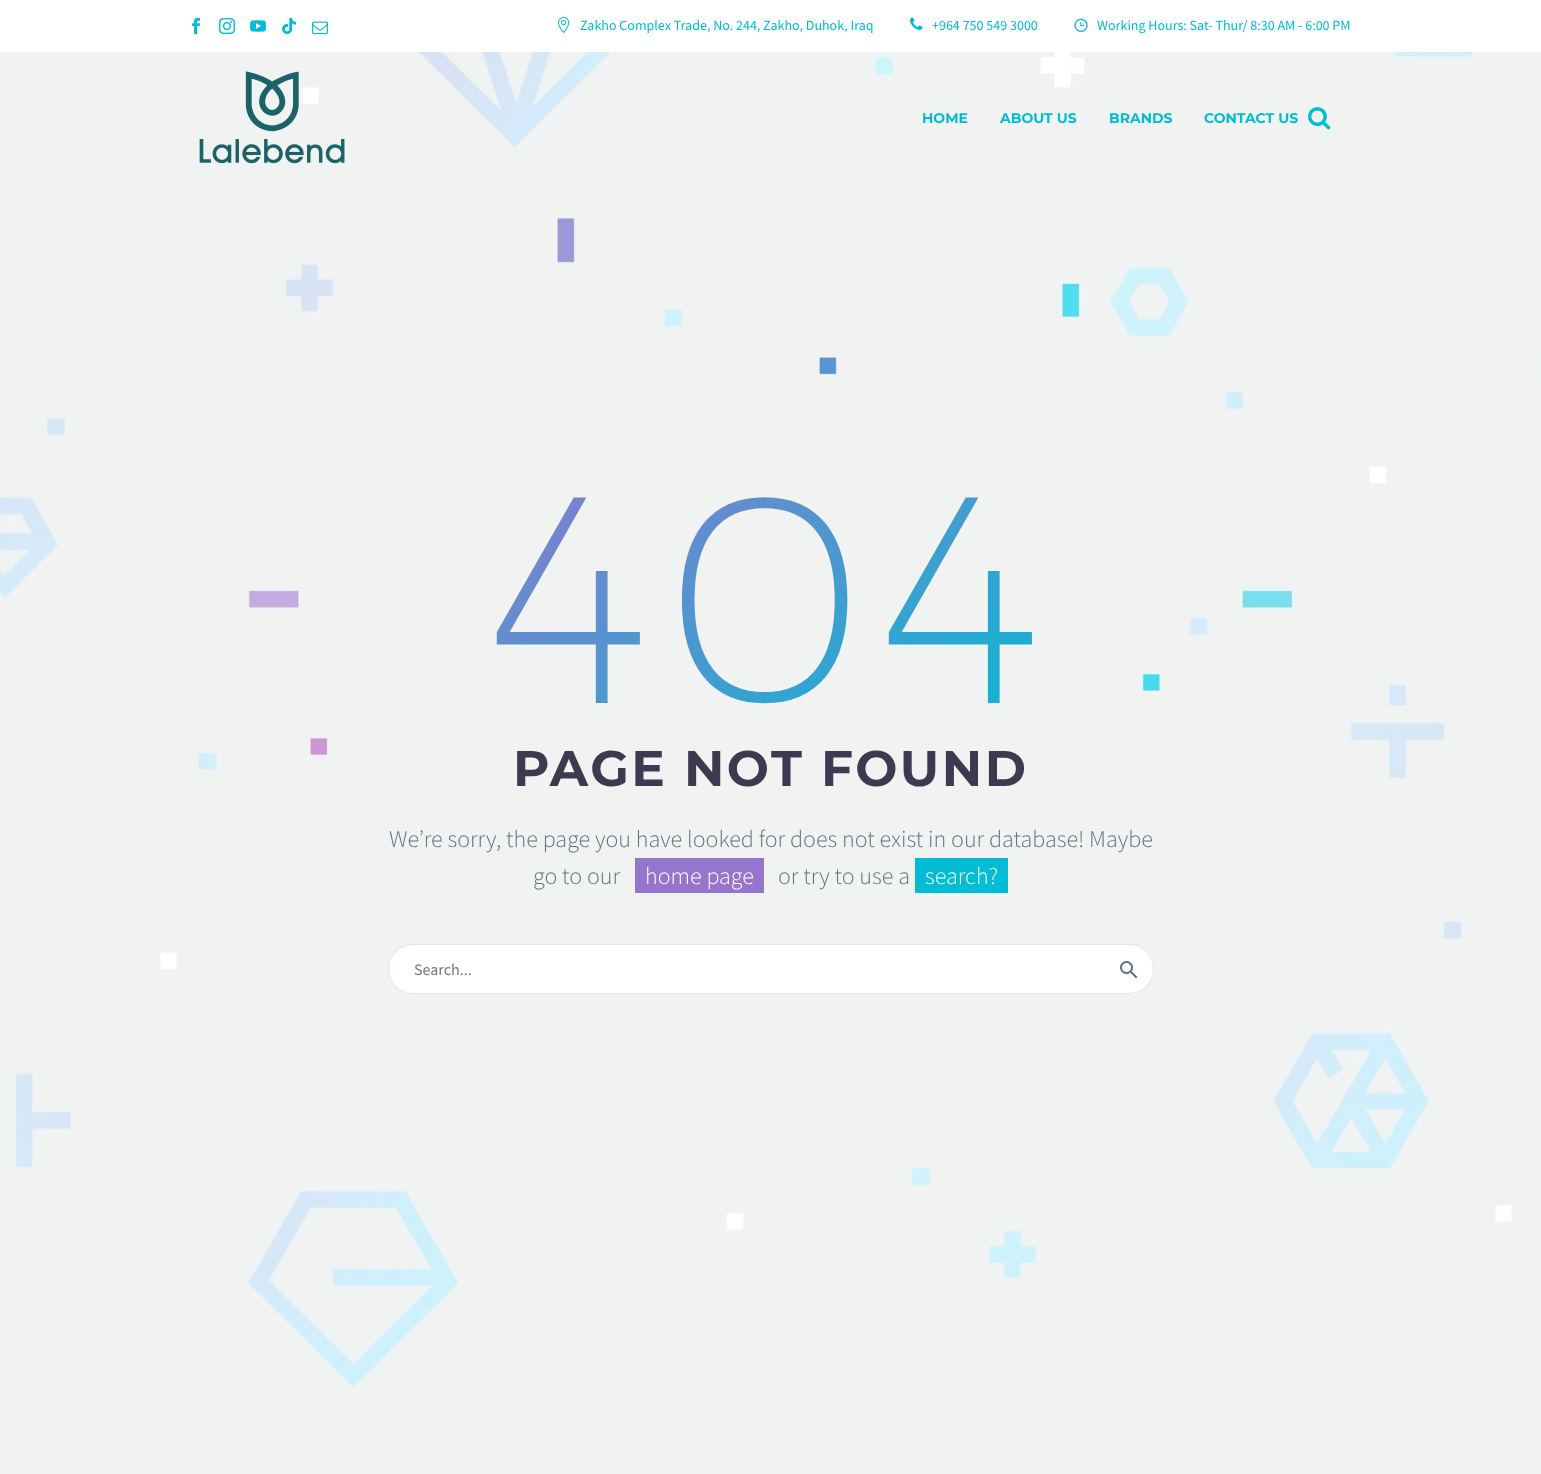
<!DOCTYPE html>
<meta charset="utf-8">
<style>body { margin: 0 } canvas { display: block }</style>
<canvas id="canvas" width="1541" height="1474"></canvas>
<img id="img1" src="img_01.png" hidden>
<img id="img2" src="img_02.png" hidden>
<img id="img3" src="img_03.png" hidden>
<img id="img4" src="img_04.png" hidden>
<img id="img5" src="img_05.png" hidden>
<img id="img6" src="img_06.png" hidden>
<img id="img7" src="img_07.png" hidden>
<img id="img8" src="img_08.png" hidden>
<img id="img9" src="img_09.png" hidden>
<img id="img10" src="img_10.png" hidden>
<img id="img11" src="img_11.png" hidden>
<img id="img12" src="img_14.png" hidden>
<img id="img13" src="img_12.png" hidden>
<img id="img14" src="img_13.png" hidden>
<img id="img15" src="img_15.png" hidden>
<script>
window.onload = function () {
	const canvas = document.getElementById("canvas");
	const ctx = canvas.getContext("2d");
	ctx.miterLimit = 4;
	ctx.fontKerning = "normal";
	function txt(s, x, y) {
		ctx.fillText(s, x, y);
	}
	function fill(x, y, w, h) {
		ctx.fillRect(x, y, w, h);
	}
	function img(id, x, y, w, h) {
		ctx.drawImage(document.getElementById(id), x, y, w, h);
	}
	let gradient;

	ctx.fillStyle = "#F0F3F2";
	fill(0, 0, 1541, 1474);
	ctx.fillStyle = "#FFFFFF";
	fill(0, 0, 1541, 52);
	img("img1", 192, 18, 8, 16);
	img("img2", 219, 18, 16, 16);
	img("img3", 250, 20, 16, 12);
	img("img4", 282, 18, 14, 16);
	img("img5", 312, 21, 16, 14);
	img("img6", 558, 17, 6, 16);
	img("img7", 564, 17, 6, 16);
	img("img8", 910, 17, 6, 12);
	img("img9", 916, 25, 7, 5);
	img("img10", 1074, 18, 7, 14);
	img("img11", 1081, 18, 7, 14);
	img("img12", 0, 52, 1541, 1335);
	img("img13", 199, 71, 146, 93);
	img("img14", 1308, 107, 23, 23);
	ctx.fillStyle = "#9575CD";
	fill(635, 858, 129, 35);
	ctx.fillStyle = "#00BCD4";
	fill(915, 858, 93, 35);
	ctx.fillStyle = "#FFFFFF";
	ctx.beginPath();
	ctx.roundRect(388.5, 944.5, 765, 49, 24.5);
	ctx.fill();
	ctx.strokeStyle = "#DFE5E8";
	ctx.stroke();
	img("img15", 1120, 961, 18, 18);
	ctx.font = "14px Source Sans Pro";
	ctx.fillStyle = "#00BCD4";
	txt("Zakho Complex Trade, No. 244, Zakho, Duhok, Iraq", 580, 30);
	txt("+964 750 549 3000", 932, 30);
	txt("Working Hours: Sat- Thur/ 8:30 AM - 6:00 PM", 1097, 30);
	ctx.font = "bold 14px Montserrat";
	txt("HOME", 922, 123);
	txt("ABOUT US", 1000, 123);
	txt("BRANDS", 1109, 123);
	txt("CONTACT US", 1204, 123);
	ctx.letterSpacing = "15px";
	ctx.font = "200 294px Montserrat";
	gradient = ctx.createLinearGradient(487, 420, 798, 927);
	gradient.addColorStop(0, "#9575CD");
	gradient.addColorStop(1, "#00BCD4");
	ctx.fillStyle = gradient;
	txt("404", 487, 703);
	ctx.letterSpacing = "2.5px";
	ctx.font = "bold 50px Montserrat";
	ctx.fillStyle = "#3C3950";
	txt("PAGE NOT FOUND", 513, 786);
	ctx.letterSpacing = "0px";
	ctx.font = "300 24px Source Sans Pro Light";
	ctx.fillStyle = "#5F727F";
	txt("We’re sorry, the page you have looked for does not exist in our database! Maybe", 389, 847);
	txt("go to our", 533, 884);
	ctx.fillStyle = "#FFFFFF";
	txt("home page", 645, 884);
	ctx.fillStyle = "#5F727F";
	txt("or try to use a", 778, 884);
	ctx.fillStyle = "#FFFFFF";
	txt("search?", 925, 884);
	ctx.font = "16px Source Sans Pro";
	ctx.fillStyle = "#757575";
	txt("Search...", 414, 975);
};
</script>
